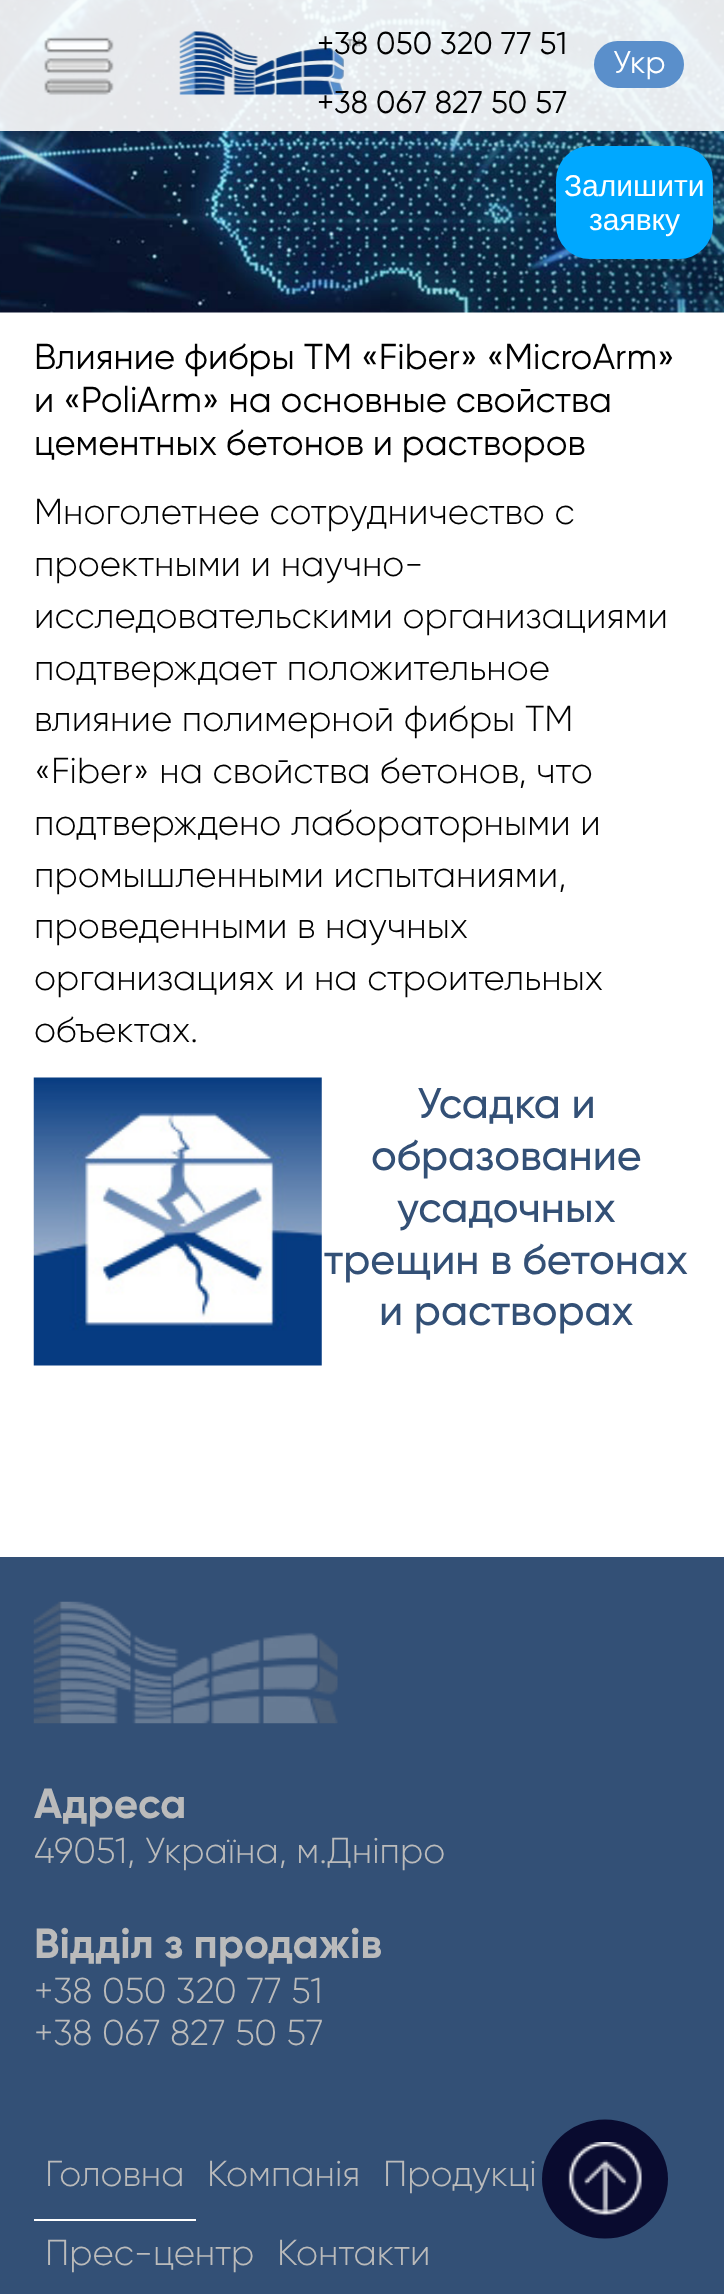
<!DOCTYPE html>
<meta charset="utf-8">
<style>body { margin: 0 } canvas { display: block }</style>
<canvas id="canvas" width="724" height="2294"></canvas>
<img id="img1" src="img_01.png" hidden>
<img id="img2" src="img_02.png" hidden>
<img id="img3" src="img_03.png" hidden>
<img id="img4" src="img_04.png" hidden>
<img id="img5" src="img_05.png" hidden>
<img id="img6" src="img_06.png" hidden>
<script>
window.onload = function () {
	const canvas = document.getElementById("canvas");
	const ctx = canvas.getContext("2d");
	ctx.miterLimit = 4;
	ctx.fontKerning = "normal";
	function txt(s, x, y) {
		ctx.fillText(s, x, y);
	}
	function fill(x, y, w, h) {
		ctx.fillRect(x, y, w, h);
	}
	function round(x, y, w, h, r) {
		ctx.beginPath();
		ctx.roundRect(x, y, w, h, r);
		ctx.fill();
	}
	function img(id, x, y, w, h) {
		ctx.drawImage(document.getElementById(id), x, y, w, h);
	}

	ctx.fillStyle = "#FFFFFF";
	fill(0, 0, 724, 2294);
	img("img1", 0, 0, 724, 313);
	ctx.fillStyle = "rgba(255, 255, 255, 0.9)";
	fill(0, 0, 724, 131);
	img("img2", 44, 37, 70, 58);
	img("img3", 179, 31, 182, 64);
	ctx.fillStyle = "#5A8FCB";
	round(594, 41, 90, 47, 23.5);
	ctx.fillStyle = "#335076";
	fill(0, 1557, 724, 737);
	ctx.fillStyle = "#090B2F";
	ctx.beginPath();
	ctx.ellipse(605, 2179, 63, 59.5, 0, 0, Math.PI * 2);
	ctx.fill();
	img("img4", 568, 2142, 74, 74);
	img("img5", 33, 1077, 289, 289);
	img("img6", 33, 1601, 305, 123);
	ctx.fillStyle = "#FFFFFF";
	fill(34, 2219, 162, 2);
	ctx.fillStyle = "#00A8FF";
	round(556, 146, 157, 113, 34);
	ctx.font = "31.5px Gilroy";
	ctx.fillStyle = "#000000";
	txt("+38 050 320 77 51", 317, 54);
	txt("+38 067 827 50 57", 317, 113);
	ctx.fillStyle = "#FFFFFF";
	txt("Укр", 613, 73);
	ctx.font = "36px Gilroy";
	ctx.fillStyle = "#000000";
	txt("Влияние фибры ТМ «Fiber» «MicroArm»", 34, 369);
	txt("и «PoliArm» на основные свойства", 34, 412);
	txt("цементных бетонов и растворов", 34, 455);
	ctx.font = "300 36px Gilroy";
	txt("Многолетнее сотрудничество с", 34, 524);
	txt("проектными и научно-", 34, 576);
	txt("исследовательскими организациями", 34, 628);
	txt("подтверждает положительное", 34, 680);
	txt("влияние полимерной фибры TM", 34, 731);
	txt("«Fiber» на свойства бетонов, что", 34, 783);
	txt("подтверждено лабораторными и", 34, 835);
	txt("промышленными испытаниями,", 34, 887);
	txt("проведенными в научных", 34, 938);
	txt("организациях и на строительных", 34, 990);
	txt("объектах.", 34, 1042);
	ctx.font = "500 42.75px Gilroy";
	ctx.fillStyle = "#335076";
	txt("Усадка и", 417, 1118);
	txt("образование", 371, 1170);
	txt("усадочных", 397, 1222);
	txt("трещин в бетонах", 324, 1274);
	txt("и растворах", 379, 1325);
	ctx.font = "bold 42px Gilroy";
	ctx.fillStyle = "#BBBBBB";
	txt("Адреса", 34, 1818);
	ctx.font = "300 36px Gilroy";
	txt("49051, Україна, м.Дніпро", 34, 1863);
	ctx.font = "bold 42px Gilroy";
	txt("Відділ з продажів", 34, 1958);
	ctx.font = "300 36px Gilroy";
	txt("+38 050 320 77 51", 34, 2003);
	txt("+38 067 827 50 57", 34, 2045);
	txt("Головна", 45, 2186);
	txt("Компанія", 207, 2186);
	txt("Продукці", 383, 2186);
	txt("Прес-центр", 45, 2265);
	txt("Контакти", 277, 2265);
	ctx.font = "30px Liberation Sans";
	ctx.fillStyle = "#FFFFFF";
	txt("Залишити", 564, 196);
	txt("заявку", 589, 230);
};
</script>
